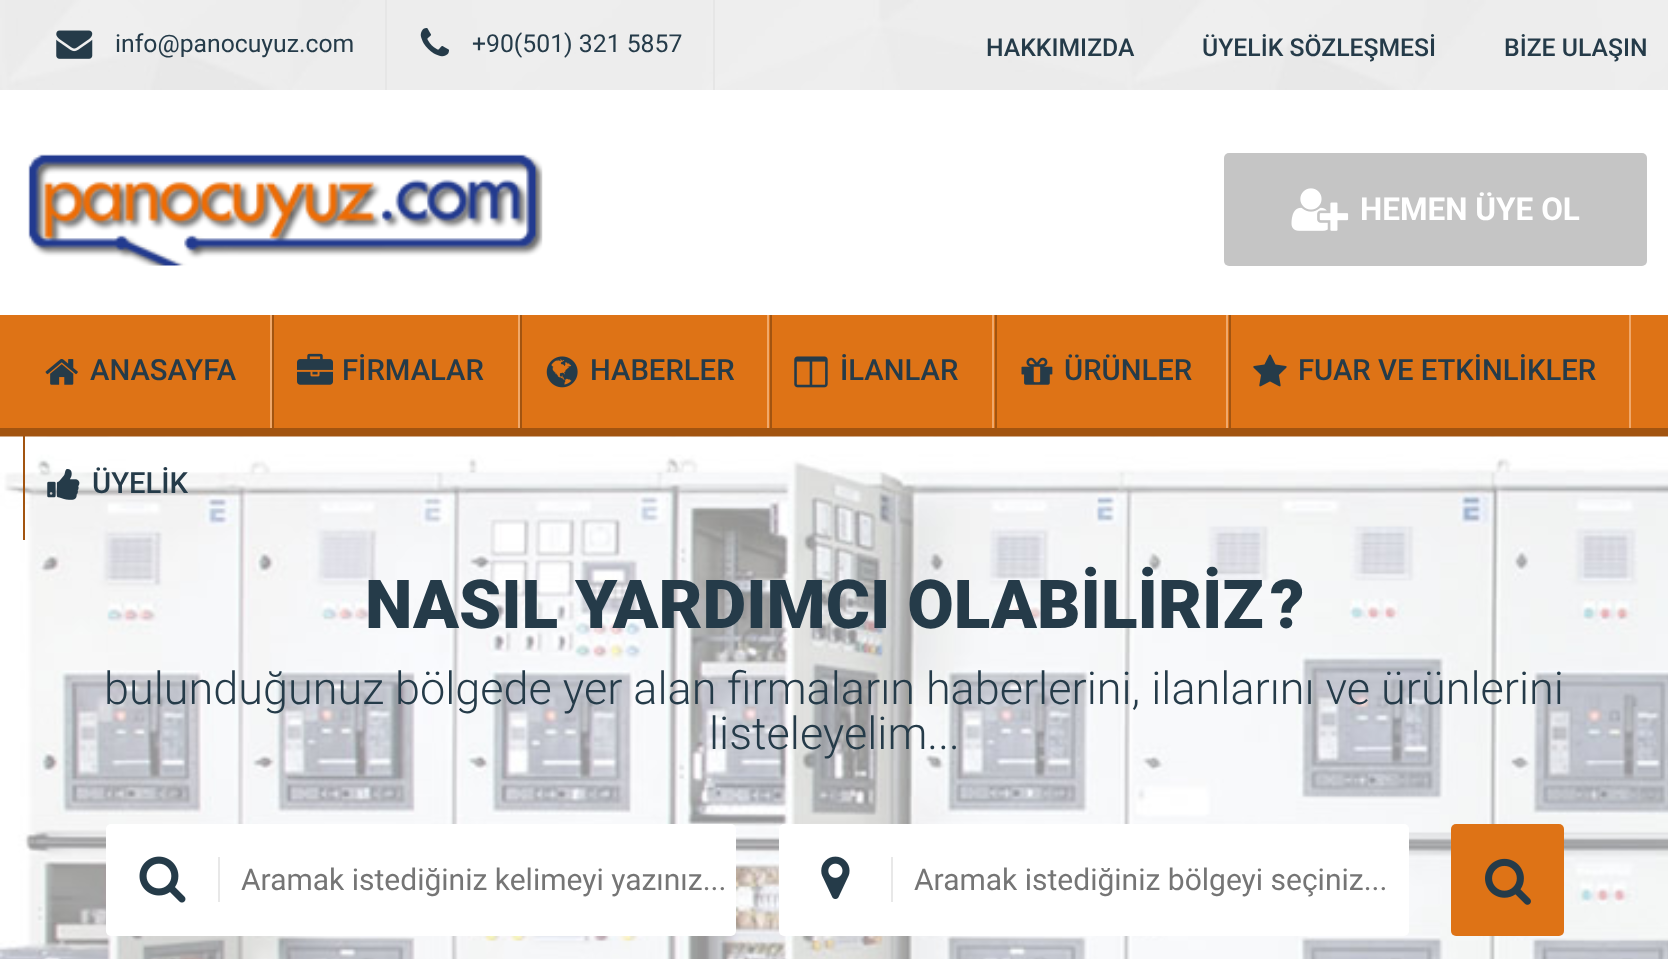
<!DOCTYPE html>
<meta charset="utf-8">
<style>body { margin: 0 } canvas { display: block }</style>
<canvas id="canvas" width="1668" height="959"></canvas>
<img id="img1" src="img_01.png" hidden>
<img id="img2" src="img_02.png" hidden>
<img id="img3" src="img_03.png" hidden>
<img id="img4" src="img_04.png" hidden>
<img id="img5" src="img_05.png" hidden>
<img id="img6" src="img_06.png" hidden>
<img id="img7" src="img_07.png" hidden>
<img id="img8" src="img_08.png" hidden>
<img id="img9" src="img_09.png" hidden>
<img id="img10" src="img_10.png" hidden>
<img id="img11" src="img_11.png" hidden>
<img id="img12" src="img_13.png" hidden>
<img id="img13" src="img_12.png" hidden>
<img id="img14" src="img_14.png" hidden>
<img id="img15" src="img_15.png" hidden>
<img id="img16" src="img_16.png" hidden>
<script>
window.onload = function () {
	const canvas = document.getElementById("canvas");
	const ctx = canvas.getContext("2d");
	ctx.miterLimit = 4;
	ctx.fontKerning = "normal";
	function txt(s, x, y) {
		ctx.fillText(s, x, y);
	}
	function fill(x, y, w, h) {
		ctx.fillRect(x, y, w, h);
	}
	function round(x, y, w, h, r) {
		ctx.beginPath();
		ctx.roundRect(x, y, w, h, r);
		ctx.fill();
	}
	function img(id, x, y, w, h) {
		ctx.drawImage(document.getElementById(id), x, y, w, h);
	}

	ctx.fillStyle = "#FFFFFF";
	fill(0, 0, 1668, 959);
	img("img1", 0, 0, 1668, 90);
	ctx.fillStyle = "#E6E6E6";
	fill(385, 0, 2, 90);
	img("img2", 56, 30, 37, 29);
	fill(713, 0, 2, 90);
	img("img3", 420, 28, 29, 29);
	img("img4", 28, 154, 515, 112);
	ctx.fillStyle = "#C5C5C5";
	round(1224, 153, 423, 113, 5);
	img("img5", 1291, 188, 58, 43);
	ctx.fillStyle = "#DE7316";
	fill(0, 315, 1668, 113);
	ctx.fillStyle = "#A25410";
	fill(0, 428, 1668, 9);
	ctx.fillStyle = "#F0A86A";
	fill(270, 315, 2, 113);
	img("img6", 45, 359, 33, 26);
	fill(518, 315, 2, 113);
	ctx.fillStyle = "#A25410";
	fill(272, 315, 2, 113);
	img("img7", 297, 353, 36, 32);
	ctx.fillStyle = "#F0A86A";
	fill(767, 315, 2, 113);
	ctx.fillStyle = "#A25410";
	fill(520, 315, 2, 113);
	img("img8", 546, 356, 32, 32);
	ctx.fillStyle = "#F0A86A";
	fill(992, 315, 2, 113);
	ctx.fillStyle = "#A25410";
	fill(770, 315, 2, 113);
	img("img9", 794, 356, 34, 32);
	ctx.fillStyle = "#F0A86A";
	fill(1226, 315, 2, 113);
	ctx.fillStyle = "#A25410";
	fill(995, 315, 2, 113);
	img("img10", 1021, 357, 32, 28);
	ctx.fillStyle = "#F0A86A";
	fill(1629, 315, 2, 113);
	ctx.fillStyle = "#A25410";
	fill(1229, 315, 2, 113);
	img("img11", 1253, 354, 34, 33);
	img("img12", 0, 436, 1668, 523);
	fill(23, 428, 2, 112);
	img("img13", 47, 469, 33, 31);
	ctx.fillStyle = "#FFFFFF";
	round(106, 824, 630, 112, 5);
	ctx.fillStyle = "#E8E8E8";
	fill(218, 857, 2, 45);
	img("img14", 139, 856, 47, 47);
	ctx.fillStyle = "#FFFFFF";
	round(779, 824, 630, 112, 5);
	ctx.fillStyle = "#E8E8E8";
	fill(891, 857, 2, 45);
	img("img15", 821, 856, 29, 43);
	ctx.fillStyle = "#DE7316";
	round(1451, 824, 113, 112, 5);
	img("img16", 1485, 858, 46, 47);
	ctx.font = "24.75px Roboto";
	ctx.fillStyle = "#253B49";
	txt("info@panocuyuz.com", 115, 52);
	txt("+90(501) 321 5857", 472, 52);
	ctx.font = "500 24.75px Roboto";
	txt("HAKKIMIZDA", 986, 56);
	txt("ÜYELİK SÖZLEŞMESİ", 1202, 56);
	txt("BİZE ULAŞIN", 1504, 56);
	ctx.font = "bold 31.5px Roboto";
	ctx.fillStyle = "#FFFFFF";
	txt("HEMEN ÜYE OL", 1360, 220);
	ctx.font = "500 29.25px Roboto";
	ctx.fillStyle = "#253B49";
	txt("ANASAYFA", 90, 380);
	txt("FİRMALAR", 342, 380);
	txt("HABERLER", 590, 380);
	txt("İLANLAR", 840, 380);
	txt("ÜRÜNLER", 1064, 380);
	txt("FUAR VE ETKİNLİKLER", 1298, 380);
	txt("ÜYELİK", 92, 493);
	ctx.font = "900 67.5px Roboto";
	txt("NASIL YARDIMCI OLABİLİRİZ", 365, 628);
	txt("?", 1270, 628);
	ctx.font = "300 45px Roboto";
	txt("bulunduğunuz bölgede yer alan firmaların haberlerini, ilanlarını ve ürünlerini", 104, 704);
	txt("listeleyelim...", 709, 749);
	ctx.font = "30px Roboto";
	ctx.fillStyle = "#757575";
	txt("Aramak istediğiniz kelimeyi yazınız...", 241, 890);
	txt("Aramak istediğiniz bölgeyi seçiniz...", 914, 890);
};
</script>
